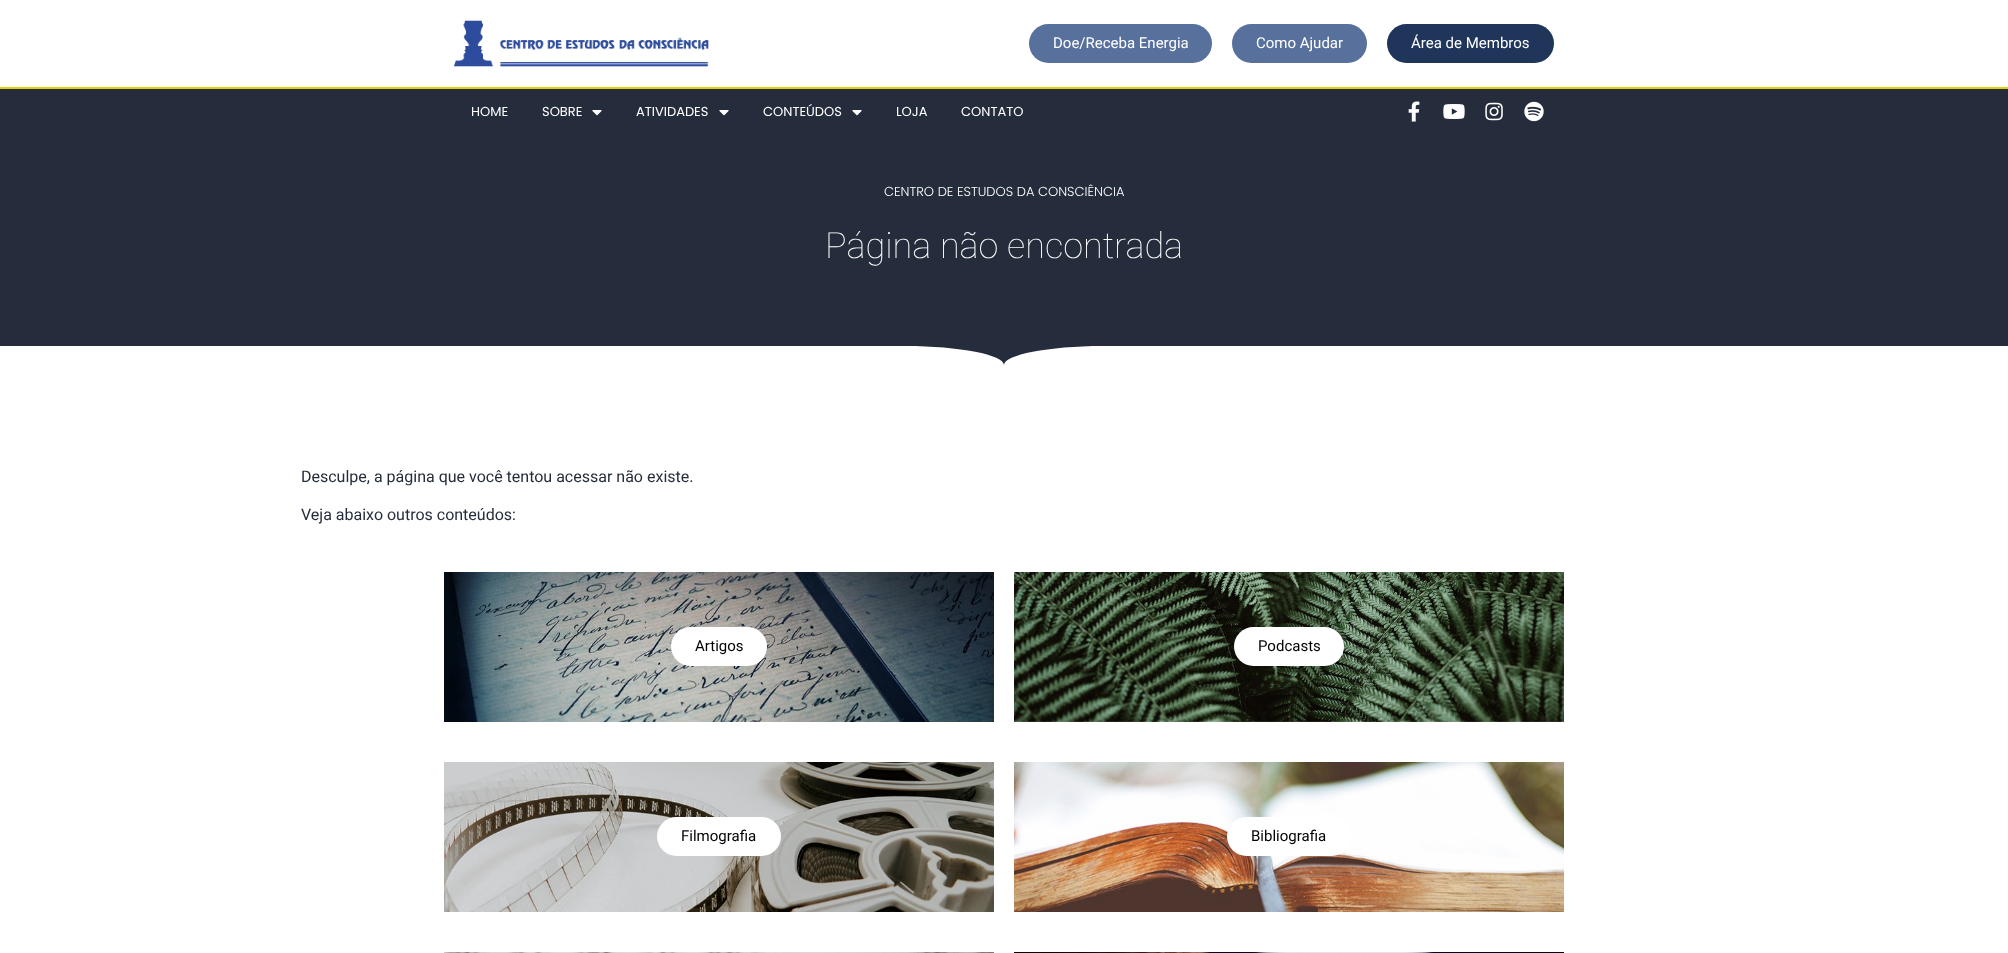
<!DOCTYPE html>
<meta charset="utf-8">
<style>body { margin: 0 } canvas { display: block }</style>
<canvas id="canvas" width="2008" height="953"></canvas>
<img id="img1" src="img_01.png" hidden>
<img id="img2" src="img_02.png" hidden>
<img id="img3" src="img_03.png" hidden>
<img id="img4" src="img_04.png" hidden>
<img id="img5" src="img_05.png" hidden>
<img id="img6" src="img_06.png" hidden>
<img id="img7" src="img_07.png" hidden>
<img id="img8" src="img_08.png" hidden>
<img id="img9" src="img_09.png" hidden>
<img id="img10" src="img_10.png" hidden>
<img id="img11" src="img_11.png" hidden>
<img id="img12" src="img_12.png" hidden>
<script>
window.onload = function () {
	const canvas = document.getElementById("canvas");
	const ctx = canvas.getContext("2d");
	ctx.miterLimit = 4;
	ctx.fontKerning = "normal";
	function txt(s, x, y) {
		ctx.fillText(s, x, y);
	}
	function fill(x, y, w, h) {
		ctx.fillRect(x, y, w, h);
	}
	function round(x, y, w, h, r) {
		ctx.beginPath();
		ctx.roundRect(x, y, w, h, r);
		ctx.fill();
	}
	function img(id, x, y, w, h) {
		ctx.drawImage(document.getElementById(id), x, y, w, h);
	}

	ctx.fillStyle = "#252D3D";
	fill(0, 0, 2008, 953);
	ctx.fillStyle = "#FFFFFF";
	fill(0, 0, 2008, 87);
	img("img1", 454, 20, 255, 47);
	ctx.fillStyle = "#57709C";
	round(1029, 24, 183, 39, 19.5);
	round(1232, 24, 135, 39, 19.5);
	ctx.fillStyle = "#1F355A";
	round(1387, 24, 167, 39, 19.5);
	ctx.fillStyle = "#E0D100";
	fill(0, 87, 2008, 2);
	img("img2", 592, 110, 10, 6);
	img("img2", 719, 110, 10, 6);
	img("img2", 852, 110, 10, 6);
	img("img3", 1408, 101, 12, 21);
	img("img4", 1443, 104, 22, 15);
	img("img5", 1485, 102, 18, 19);
	img("img6", 1524, 101, 20, 21);
	ctx.fillStyle = "#FFFFFF";
	ctx.beginPath();
	ctx.moveTo(1103, 346);
	ctx.bezierCurveTo(1048, 346, 1004, 355, 1004, 365);
	ctx.bezierCurveTo(1004, 355, 960, 346, 905, 346);
	ctx.lineTo(-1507, 346);
	ctx.lineTo(-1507, 366);
	ctx.lineTo(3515, 366);
	ctx.lineTo(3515, 346);
	ctx.closePath();
	ctx.fill();
	fill(0, 366, 2008, 587);
	img("img7", 444, 572, 550, 150);
	round(671, 627, 96, 39, 19.5);
	img("img8", 1014, 572, 550, 150);
	round(1234, 627, 110, 39, 19.5);
	img("img9", 444, 762, 550, 150);
	round(657, 817, 124, 39, 19.5);
	img("img10", 1014, 762, 550, 150);
	round(1227, 817, 124, 39, 19.5);
	img("img11", 444, 952, 550, 1);
	img("img12", 1014, 952, 550, 1);
	ctx.font = "15px Roboto";
	txt("Doe/Receba Energia", 1053, 48);
	txt("Como Ajudar", 1256, 48);
	txt("Área de Membros", 1411, 48);
	ctx.font = "13px Poppins";
	txt("HOME", 471, 116);
	txt("SOBRE", 542, 116);
	txt("ATIVIDADES", 636, 116);
	txt("CONTEÚDOS", 763, 116);
	txt("LOJA", 896, 116);
	txt("CONTATO", 961, 116);
	ctx.font = "300 13px Poppins";
	txt("CENTRO DE ESTUDOS DA CONSCIÊNCIA", 884, 196);
	ctx.font = "100 36px Roboto";
	txt("Página não encontrada", 825, 258);
	ctx.font = "16px Roboto";
	ctx.fillStyle = "#252D3C";
	txt("Desculpe, a página que você tentou acessar não existe.", 301, 482);
	txt("Veja abaixo outros conteúdos:", 301, 520);
	ctx.font = "15px Roboto";
	ctx.fillStyle = "#000000";
	txt("Artigos", 695, 651);
	txt("Podcasts", 1258, 651);
	txt("Filmografia", 681, 841);
	txt("Bibliografia", 1251, 841);
};
</script>
